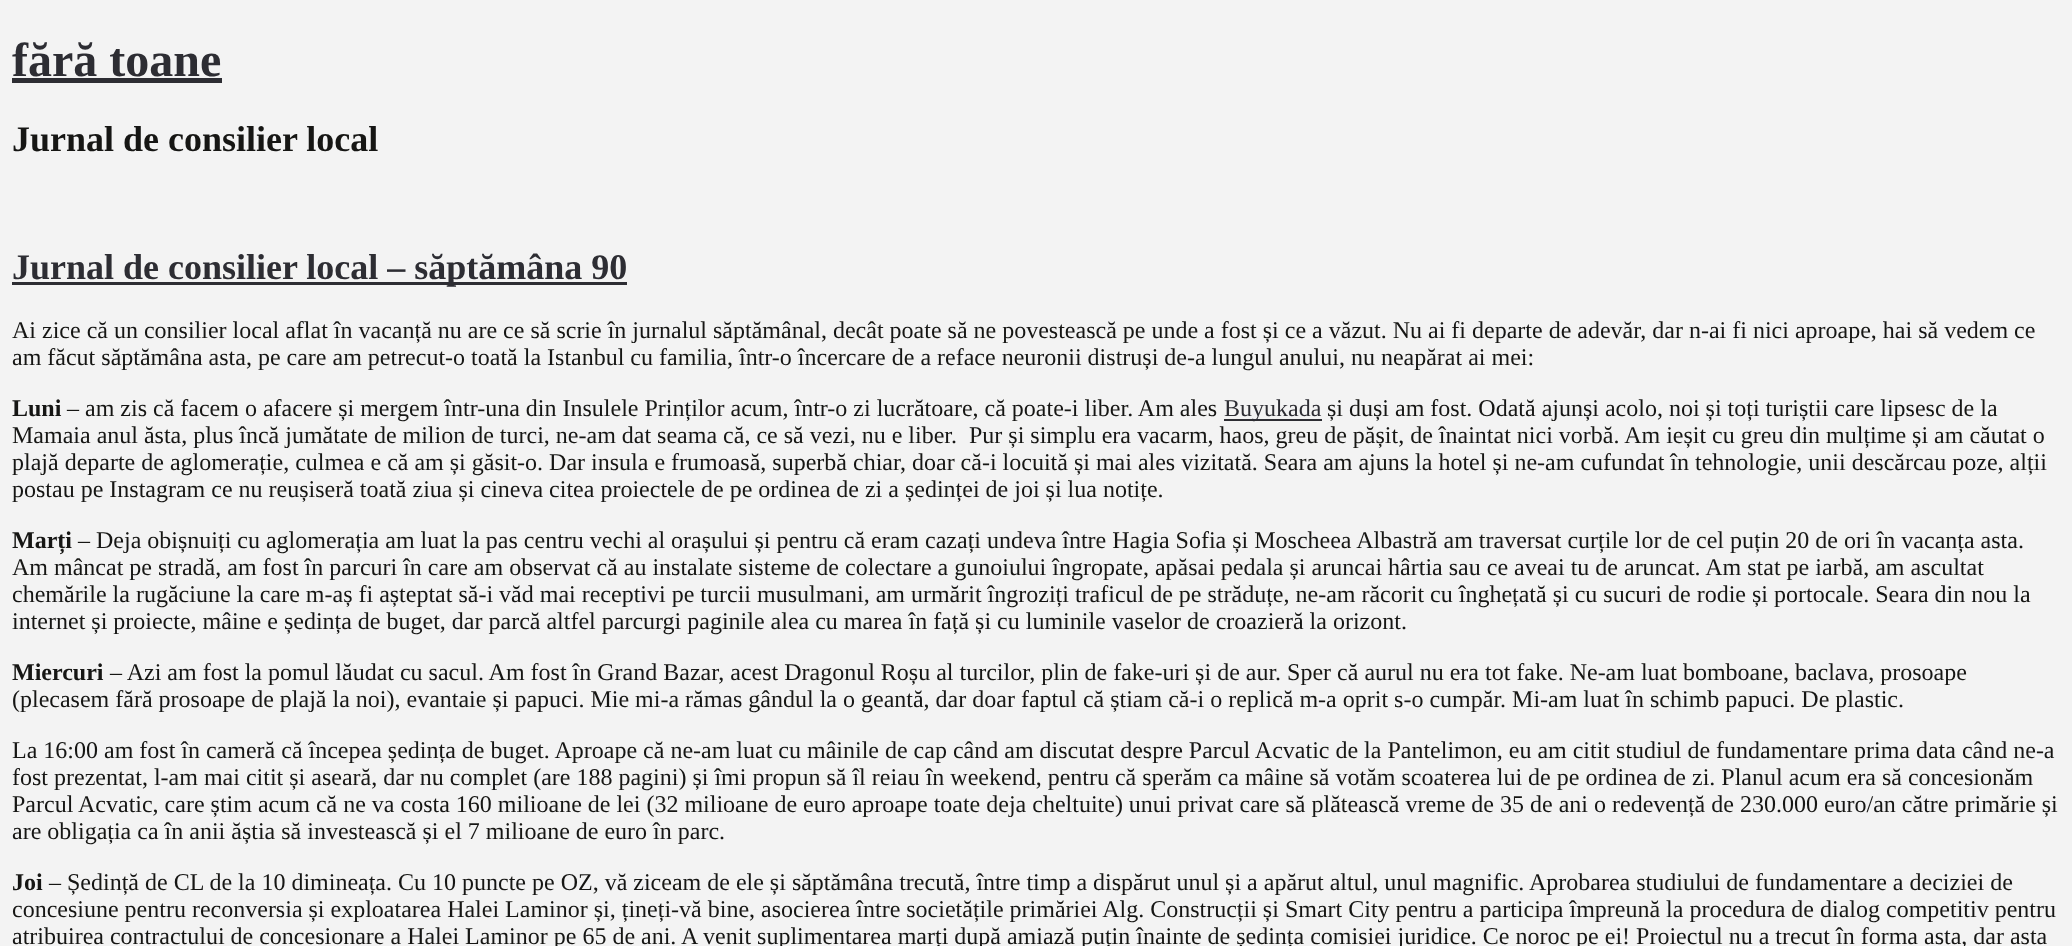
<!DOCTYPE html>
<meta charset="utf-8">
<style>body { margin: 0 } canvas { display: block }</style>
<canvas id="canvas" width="2072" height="946"></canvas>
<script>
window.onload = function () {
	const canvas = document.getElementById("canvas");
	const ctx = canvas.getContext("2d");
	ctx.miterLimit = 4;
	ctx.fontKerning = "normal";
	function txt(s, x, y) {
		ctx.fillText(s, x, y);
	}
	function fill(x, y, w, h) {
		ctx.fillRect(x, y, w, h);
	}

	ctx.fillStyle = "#F3F3F3";
	fill(0, 0, 2072, 946);
	ctx.fillStyle = "#2D2D33";
	fill(12, 78, 210, 5);
	fill(12, 282, 615, 3);
	fill(1224, 419, 98, 2);
	ctx.font = "bold 48px Liberation Serif";
	txt("fără toane", 12, 76);
	ctx.font = "bold 36px Liberation Serif";
	ctx.fillStyle = "#161614";
	txt("Jurnal de consilier local", 12, 151);
	ctx.fillStyle = "#2D2D33";
	txt("Jurnal de consilier local – săptămâna 90", 12, 279);
	ctx.font = "24px Liberation Serif";
	ctx.fillStyle = "#161614";
	txt("Ai zice că un consilier local aflat în vacanță nu are ce să scrie în jurnalul săptămânal, decât poate să ne povestească pe unde a fost și ce a văzut. Nu ai fi departe de adevăr, dar n-ai fi nici aproape, hai să vedem ce", 12, 338);
	txt("am făcut săptămâna asta, pe care am petrecut-o toată la Istanbul cu familia, într-o încercare de a reface neuronii distruși de-a lungul anului, nu neapărat ai mei:", 12, 365);
	ctx.font = "bold 24px Liberation Serif";
	txt("Luni", 12, 416);
	ctx.font = "24px Liberation Serif";
	txt("– am zis că facem o afacere și mergem într-una din Insulele Prinților acum, într-o zi lucrătoare, că poate-i liber. Am ales", 67, 416);
	ctx.fillStyle = "#2D2D33";
	txt("Buyukada", 1224, 416);
	ctx.fillStyle = "#161614";
	txt("și duși am fost. Odată ajunși acolo, noi și toți turiștii care lipsesc de la", 1327, 416);
	txt("Mamaia anul ăsta, plus încă jumătate de milion de turci, ne-am dat seama că, ce să vezi, nu e liber.  Pur și simplu era vacarm, haos, greu de pășit, de înaintat nici vorbă. Am ieșit cu greu din mulțime și am căutat o", 12, 443);
	txt("plajă departe de aglomerație, culmea e că am și găsit-o. Dar insula e frumoasă, superbă chiar, doar că-i locuită și mai ales vizitată. Seara am ajuns la hotel și ne-am cufundat în tehnologie, unii descărcau poze, alții", 12, 470);
	txt("postau pe Instagram ce nu reușiseră toată ziua și cineva citea proiectele de pe ordinea de zi a ședinței de joi și lua notițe.", 12, 497);
	ctx.font = "bold 24px Liberation Serif";
	txt("Marți", 12, 548);
	ctx.font = "24px Liberation Serif";
	txt("– Deja obișnuiți cu aglomerația am luat la pas centru vechi al orașului și pentru că eram cazați undeva între Hagia Sofia și Moscheea Albastră am traversat curțile lor de cel puțin 20 de ori în vacanța asta.", 78, 548);
	txt("Am mâncat pe stradă, am fost în parcuri în care am observat că au instalate sisteme de colectare a gunoiului îngropate, apăsai pedala și aruncai hârtia sau ce aveai tu de aruncat. Am stat pe iarbă, am ascultat", 12, 575);
	txt("chemările la rugăciune la care m-aș fi așteptat să-i văd mai receptivi pe turcii musulmani, am urmărit îngroziți traficul de pe străduțe, ne-am răcorit cu înghețată și cu sucuri de rodie și portocale. Seara din nou la", 12, 602);
	txt("internet și proiecte, mâine e ședința de buget, dar parcă altfel parcurgi paginile alea cu marea în față și cu luminile vaselor de croazieră la orizont.", 12, 629);
	ctx.font = "bold 24px Liberation Serif";
	txt("Miercuri", 12, 680);
	ctx.font = "24px Liberation Serif";
	txt("– Azi am fost la pomul lăudat cu sacul. Am fost în Grand Bazar, acest Dragonul Roșu al turcilor, plin de fake-uri și de aur. Sper că aurul nu era tot fake. Ne-am luat bomboane, baclava, prosoape", 110, 680);
	txt("(plecasem fără prosoape de plajă la noi), evantaie și papuci. Mie mi-a rămas gândul la o geantă, dar doar faptul că știam că-i o replică m-a oprit s-o cumpăr. Mi-am luat în schimb papuci. De plastic.", 12, 707);
	txt("La 16:00 am fost în cameră că începea ședința de buget. Aproape că ne-am luat cu mâinile de cap când am discutat despre Parcul Acvatic de la Pantelimon, eu am citit studiul de fundamentare prima data când ne-a", 12, 758);
	txt("fost prezentat, l-am mai citit și aseară, dar nu complet (are 188 pagini) și îmi propun să îl reiau în weekend, pentru că sperăm ca mâine să votăm scoaterea lui de pe ordinea de zi. Planul acum era să concesionăm", 12, 785);
	txt("Parcul Acvatic, care știm acum că ne va costa 160 milioane de lei (32 milioane de euro aproape toate deja cheltuite) unui privat care să plătească vreme de 35 de ani o redevență de 230.000 euro/an către primărie și", 12, 812);
	txt("are obligația ca în anii ăștia să investească și el 7 milioane de euro în parc.", 12, 839);
	ctx.font = "bold 24px Liberation Serif";
	txt("Joi", 12, 890);
	ctx.font = "24px Liberation Serif";
	txt("– Ședință de CL de la 10 dimineața. Cu 10 puncte pe OZ, vă ziceam de ele și săptămâna trecută, între timp a dispărut unul și a apărut altul, unul magnific. Aprobarea studiului de fundamentare a deciziei de", 49, 890);
	txt("concesiune pentru reconversia și exploatarea Halei Laminor și, țineți-vă bine, asocierea între societățile primăriei Alg. Construcții și Smart City pentru a participa împreună la procedura de dialog competitiv pentru", 12, 917);
	txt("atribuirea contractului de concesionare a Halei Laminor pe 65 de ani. A venit suplimentarea marți după amiază puțin înainte de ședința comisiei juridice. Ce noroc pe ei! Proiectul nu a trecut în forma asta, dar asta", 12, 944);
};
</script>
